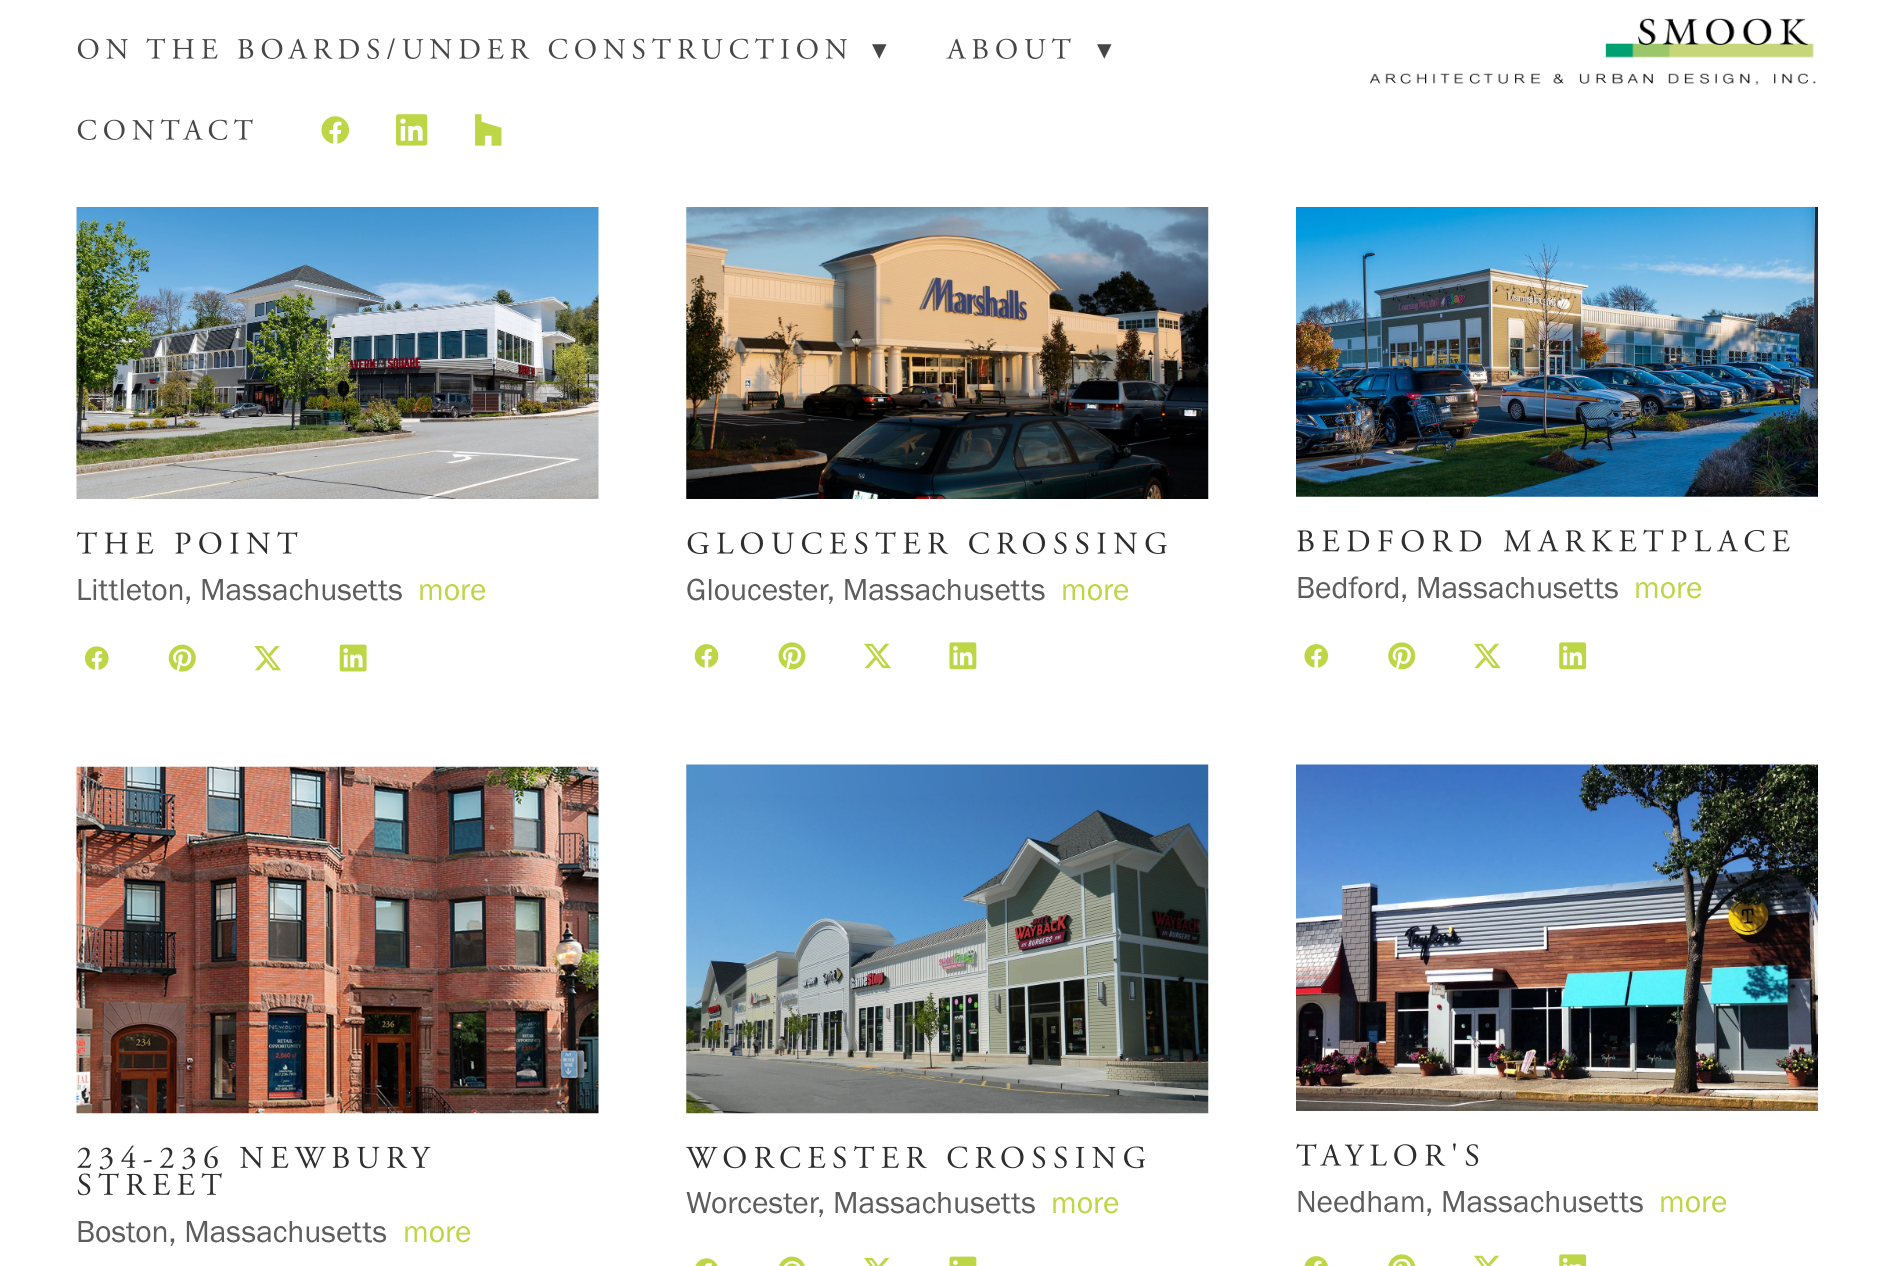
<!DOCTYPE html>
<meta charset="utf-8">
<style>body { margin: 0 } canvas { display: block }</style>
<canvas id="canvas" width="1893" height="1266"></canvas>
<img id="img1" src="img_01.png" hidden>
<img id="img2" src="img_02.png" hidden>
<img id="img3" src="img_03.png" hidden>
<img id="img4" src="img_04.png" hidden>
<img id="img5" src="img_05.png" hidden>
<img id="img6" src="img_06.png" hidden>
<img id="img7" src="img_07.png" hidden>
<img id="img8" src="img_08.png" hidden>
<img id="img9" src="img_09.png" hidden>
<img id="img10" src="img_10.png" hidden>
<img id="img11" src="img_11.png" hidden>
<img id="img12" src="img_12.png" hidden>
<img id="img13" src="img_13.png" hidden>
<img id="img14" src="img_14.png" hidden>
<img id="img15" src="img_15.png" hidden>
<img id="img16" src="img_16.png" hidden>
<img id="img17" src="img_17.png" hidden>
<img id="img18" src="img_18.png" hidden>
<img id="img19" src="img_19.png" hidden>
<img id="img20" src="img_20.png" hidden>
<img id="img21" src="img_21.png" hidden>
<img id="img22" src="img_22.png" hidden>
<img id="img23" src="img_23.png" hidden>
<img id="img24" src="img_24.png" hidden>
<img id="img25" src="img_25.png" hidden>
<img id="img26" src="img_26.png" hidden>
<img id="img27" src="img_27.png" hidden>
<img id="img28" src="img_28.png" hidden>
<img id="img29" src="img_29.png" hidden>
<img id="img30" src="img_30.png" hidden>
<img id="img31" src="img_31.png" hidden>
<img id="img32" src="img_32.png" hidden>
<img id="img33" src="img_33.png" hidden>
<img id="img34" src="img_34.png" hidden>
<img id="img35" src="img_35.png" hidden>
<img id="img36" src="img_36.png" hidden>
<img id="img37" src="img_37.png" hidden>
<img id="img38" src="img_38.png" hidden>
<img id="img39" src="img_39.png" hidden>
<img id="img40" src="img_40.png" hidden>
<script>
window.onload = function () {
	const canvas = document.getElementById("canvas");
	const ctx = canvas.getContext("2d");
	ctx.miterLimit = 4;
	ctx.fontKerning = "normal";
	function txt(s, x, y) {
		ctx.fillText(s, x, y);
	}
	function fill(x, y, w, h) {
		ctx.fillRect(x, y, w, h);
	}
	function img(id, x, y, w, h) {
		ctx.drawImage(document.getElementById(id), x, y, w, h);
	}

	ctx.fillStyle = "#FFFFFF";
	fill(0, 0, 1893, 1266);
	img("img1", 77, 38, 770, 21);
	img("img2", 946, 38, 125, 21);
	img("img3", 77, 119, 176, 21);
	img("img4", 321, 116, 28, 28);
	img("img5", 396, 114, 32, 32);
	img("img6", 475, 114, 27, 32);
	img("img7", 1370, 18, 446, 67);
	img("img8", 76, 207, 523, 292);
	img("img9", 76, 531, 222, 23);
	img("img10", 84, 646, 25, 24);
	img("img11", 168, 644, 28, 28);
	img("img12", 254, 646, 28, 25);
	img("img13", 339, 644, 28, 28);
	img("img14", 686, 207, 523, 292);
	img("img15", 687, 531, 480, 23);
	img("img16", 694, 644, 25, 24);
	img("img17", 778, 642, 28, 28);
	img("img18", 864, 643, 27, 26);
	img("img19", 949, 642, 28, 28);
	img("img20", 1296, 207, 522, 290);
	img("img21", 1297, 529, 493, 23);
	img("img22", 1304, 644, 25, 24);
	img("img23", 1388, 642, 28, 28);
	img("img24", 1473, 643, 28, 26);
	img("img25", 1559, 642, 28, 28);
	img("img26", 686, 764, 523, 350);
	img("img27", 686, 1146, 459, 23);
	img("img28", 695, 1258, 23, 8);
	img("img29", 779, 1256, 26, 10);
	img("img30", 864, 1258, 26, 8);
	img("img31", 949, 1256, 28, 10);
	img("img32", 1296, 764, 522, 347);
	img("img33", 1296, 1143, 183, 23);
	img("img34", 1304, 1256, 24, 10);
	img("img35", 1388, 1254, 28, 12);
	img("img36", 1473, 1255, 26, 11);
	img("img37", 1559, 1254, 28, 12);
	img("img38", 76, 766, 523, 348);
	img("img39", 77, 1145, 354, 25);
	img("img40", 77, 1173, 145, 23);
	ctx.letterSpacing = "6px";
	ctx.font = "29px DejaVu Sans";
	ctx.fillStyle = "#464646";
	txt("▾", 872, 59);
	txt("▾", 1097, 59);
	ctx.letterSpacing = "0px";
	ctx.font = "31.5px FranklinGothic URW";
	ctx.fillStyle = "#5D5D5D";
	txt("Littleton, Massachusetts", 76, 600);
	ctx.fillStyle = "#BDD646";
	txt("more", 418, 600);
	ctx.fillStyle = "#5D5D5D";
	txt("Gloucester, Massachusetts", 686, 600);
	ctx.fillStyle = "#BDD646";
	txt("more", 1061, 600);
	ctx.fillStyle = "#5D5D5D";
	txt("Bedford, Massachusetts", 1296, 598);
	ctx.fillStyle = "#BDD646";
	txt("more", 1634, 598);
	ctx.fillStyle = "#5D5D5D";
	txt("Worcester, Massachusetts", 686, 1213);
	ctx.fillStyle = "#BDD646";
	txt("more", 1051, 1213);
	ctx.fillStyle = "#5D5D5D";
	txt("Needham, Massachusetts", 1296, 1212);
	ctx.fillStyle = "#BDD646";
	txt("more", 1659, 1212);
	ctx.fillStyle = "#5D5D5D";
	txt("Boston, Massachusetts", 76, 1242);
	ctx.fillStyle = "#BDD646";
	txt("more", 403, 1242);
};
</script>
